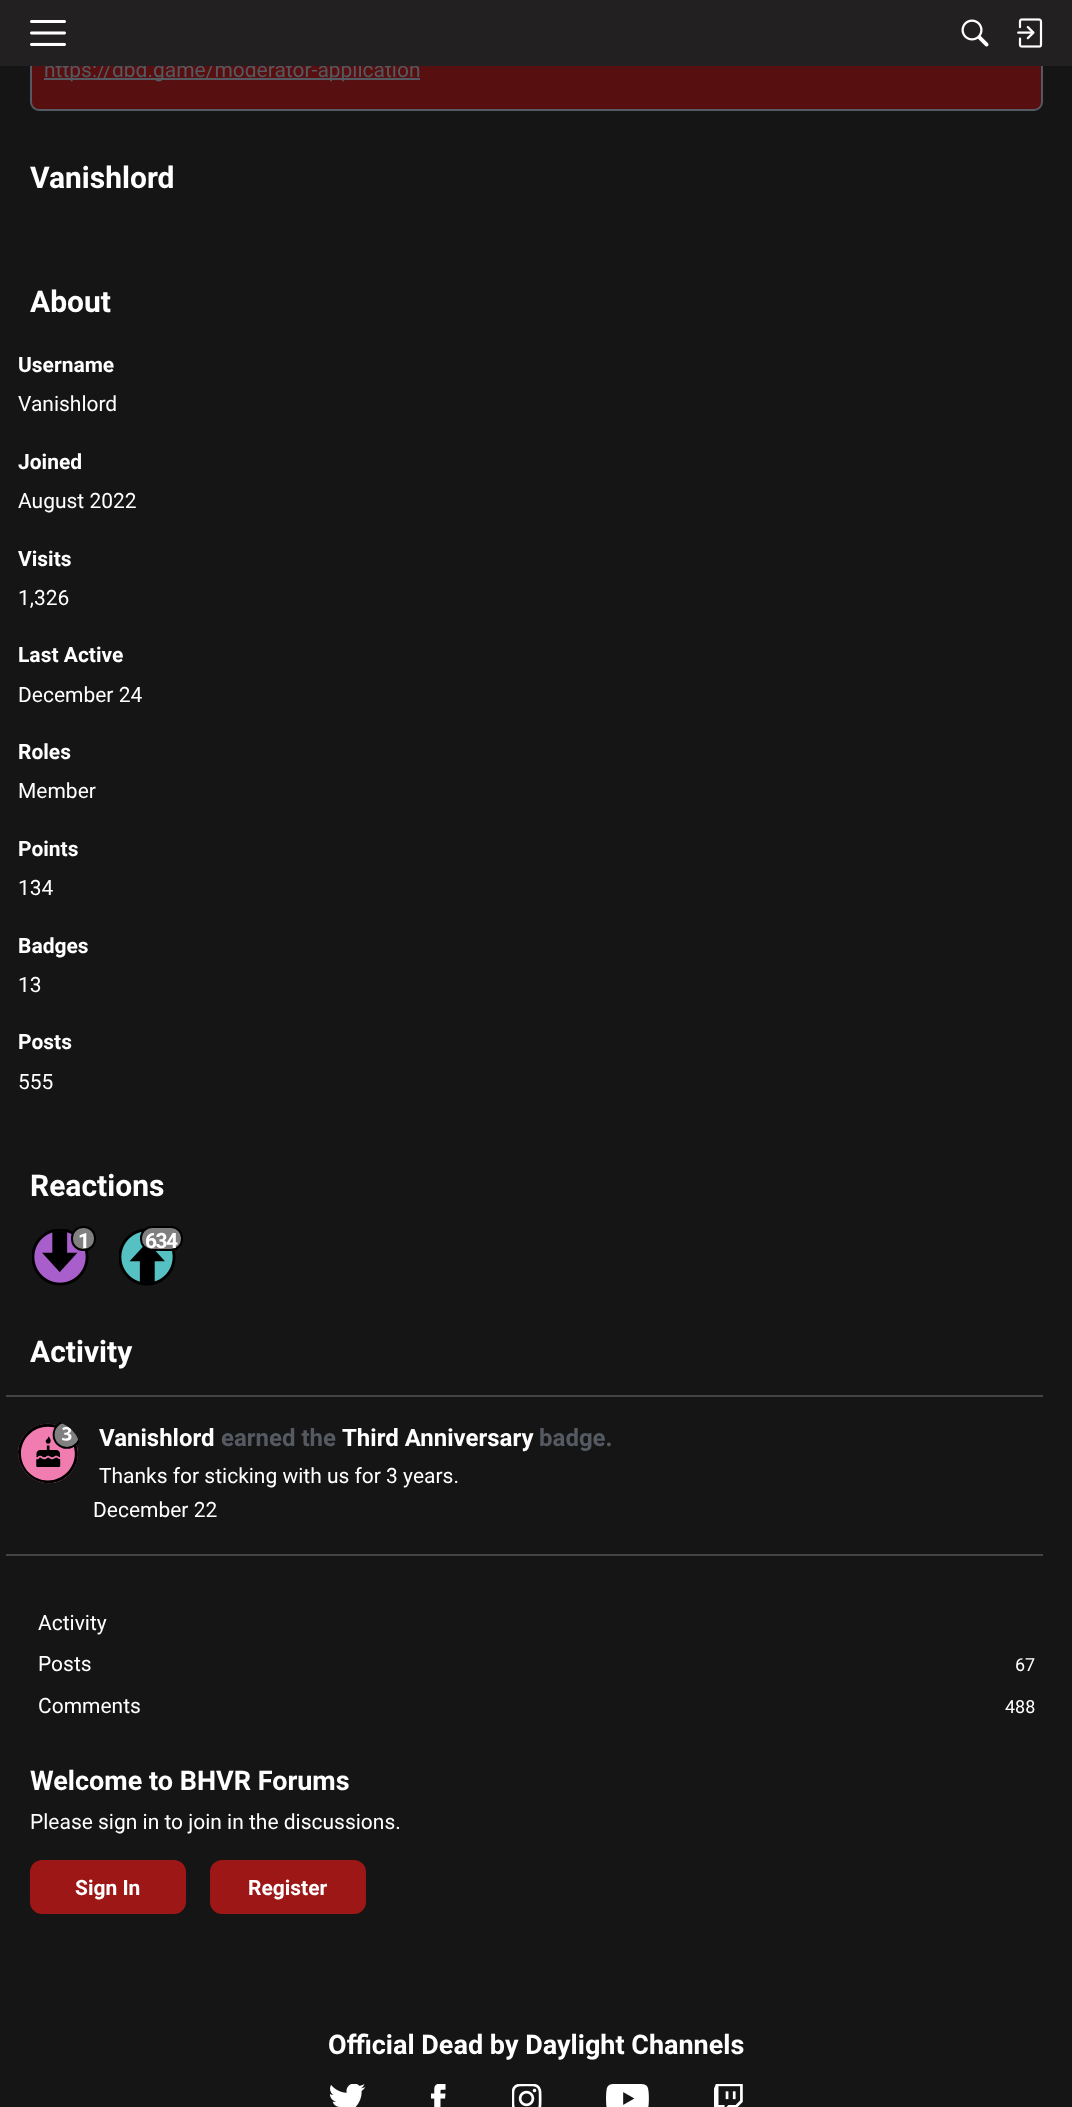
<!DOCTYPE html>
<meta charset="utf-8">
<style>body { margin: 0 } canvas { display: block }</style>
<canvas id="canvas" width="1072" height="2107"></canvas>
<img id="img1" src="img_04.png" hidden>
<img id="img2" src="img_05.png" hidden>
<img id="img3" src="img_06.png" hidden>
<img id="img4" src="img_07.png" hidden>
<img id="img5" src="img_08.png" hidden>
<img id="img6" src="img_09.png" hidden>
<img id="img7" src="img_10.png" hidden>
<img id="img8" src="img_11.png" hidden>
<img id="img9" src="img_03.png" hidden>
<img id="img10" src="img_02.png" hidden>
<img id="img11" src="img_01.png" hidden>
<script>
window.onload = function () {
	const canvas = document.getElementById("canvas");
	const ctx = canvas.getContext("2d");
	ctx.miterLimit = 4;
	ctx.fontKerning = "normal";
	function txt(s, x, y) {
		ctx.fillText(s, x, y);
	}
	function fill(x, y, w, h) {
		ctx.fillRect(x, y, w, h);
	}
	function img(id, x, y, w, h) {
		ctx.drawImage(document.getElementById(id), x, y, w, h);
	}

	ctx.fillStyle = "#161515";
	fill(0, 0, 1072, 2107);
	ctx.fillStyle = "#570F0F";
	ctx.beginPath();
	ctx.roundRect(31, -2, 1011, 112, 8);
	ctx.fill();
	ctx.strokeStyle = "#555A62";
	ctx.lineWidth = 2;
	ctx.stroke();
	ctx.fillStyle = "#555A62";
	fill(44, 78, 376, 2);
	img("img1", 32, 1229, 57, 57);
	ctx.fillStyle = "#808080";
	ctx.beginPath();
	ctx.roundRect(72, 1227, 23, 23, 11);
	ctx.fill();
	ctx.strokeStyle = "#000000";
	ctx.stroke();
	img("img2", 119, 1229, 57, 57);
	ctx.beginPath();
	ctx.roundRect(141, 1227, 41, 23, 11);
	ctx.fill();
	ctx.stroke();
	ctx.fillStyle = "#454444";
	fill(6, 1395, 1037, 2);
	img("img3", 18, 1422, 61, 62);
	fill(6, 1554, 1037, 2);
	ctx.fillStyle = "#9D1717";
	ctx.beginPath();
	ctx.roundRect(31, 1861, 154, 52, 11);
	ctx.fill();
	ctx.strokeStyle = "#9D1717";
	ctx.stroke();
	ctx.beginPath();
	ctx.roundRect(211, 1861, 154, 52, 11);
	ctx.fill();
	ctx.stroke();
	img("img4", 330, 2084, 36, 23);
	img("img5", 431, 2084, 15, 23);
	img("img6", 512, 2084, 30, 23);
	img("img7", 606, 2084, 43, 23);
	img("img8", 714, 2084, 29, 23);
	ctx.font = "21px Roboto";
	ctx.fillStyle = "#555A62";
	txt("https://dbd.game/moderator-application", 44, 77);
	ctx.fillStyle = "#222021";
	fill(0, 0, 1072, 66);
	img("img9", 1017, 18, 26, 30);
	img("img10", 961, 19, 28, 28);
	img("img11", 30, 20, 36, 26);
	ctx.font = "bold 30px Roboto";
	ctx.fillStyle = "#FFFFFF";
	txt("Vanishlord", 30, 188);
	txt("About", 30, 312);
	ctx.font = "bold 21px Roboto";
	txt("Username", 18, 372);
	ctx.font = "21px Roboto";
	txt("Vanishlord", 18, 411);
	ctx.font = "bold 21px Roboto";
	txt("Joined", 18, 469);
	ctx.font = "21px Roboto";
	txt("August 2022", 18, 508);
	ctx.font = "bold 21px Roboto";
	txt("Visits", 18, 566);
	ctx.font = "21px Roboto";
	txt("1,326", 18, 605);
	ctx.font = "bold 21px Roboto";
	txt("Last Active", 18, 662);
	ctx.font = "21px Roboto";
	txt("December 24", 18, 702);
	ctx.font = "bold 21px Roboto";
	txt("Roles", 18, 759);
	ctx.font = "21px Roboto";
	txt("Member", 18, 798);
	ctx.font = "bold 21px Roboto";
	txt("Points", 18, 856);
	ctx.font = "21px Roboto";
	txt("134", 18, 895);
	ctx.font = "bold 21px Roboto";
	txt("Badges", 18, 953);
	ctx.font = "21px Roboto";
	txt("13", 18, 992);
	ctx.font = "bold 21px Roboto";
	txt("Posts", 18, 1049);
	ctx.font = "21px Roboto";
	txt("555", 18, 1089);
	ctx.font = "bold 30px Roboto";
	txt("Reactions", 30, 1196);
	ctx.letterSpacing = "-1.5px";
	ctx.font = "bold 21px Roboto";
	txt("1", 78, 1248);
	txt("634", 145, 1248);
	ctx.letterSpacing = "0px";
	ctx.font = "bold 30px Roboto";
	txt("Activity", 30, 1362);
	ctx.font = "bold 24px Roboto";
	txt("Vanishlord", 99, 1446);
	ctx.fillStyle = "#555A62";
	txt("earned the", 221, 1446);
	ctx.fillStyle = "#FFFFFF";
	txt("Third Anniversary", 342, 1446);
	ctx.fillStyle = "#555A62";
	txt("badge.", 539, 1446);
	ctx.font = "21px Roboto";
	ctx.fillStyle = "#FFFFFF";
	txt("Thanks for sticking with us for 3 years.", 99, 1483);
	txt("December 22", 93, 1517);
	txt("Activity", 38, 1630);
	txt("Posts", 38, 1671);
	ctx.font = "18px Roboto";
	txt("67", 1015, 1671);
	ctx.font = "21px Roboto";
	txt("Comments", 38, 1713);
	ctx.font = "18px Roboto";
	txt("488", 1005, 1713);
	ctx.font = "bold 27px Roboto";
	txt("Welcome to BHVR Forums", 30, 1790);
	ctx.font = "21px Roboto";
	txt("Please sign in to join in the discussions.", 30, 1829);
	ctx.font = "bold 21px Roboto";
	txt("Sign In", 75, 1895);
	txt("Register", 248, 1895);
	ctx.font = "bold 27px Roboto";
	txt("Official Dead by Daylight Channels", 328, 2054);
};
</script>
